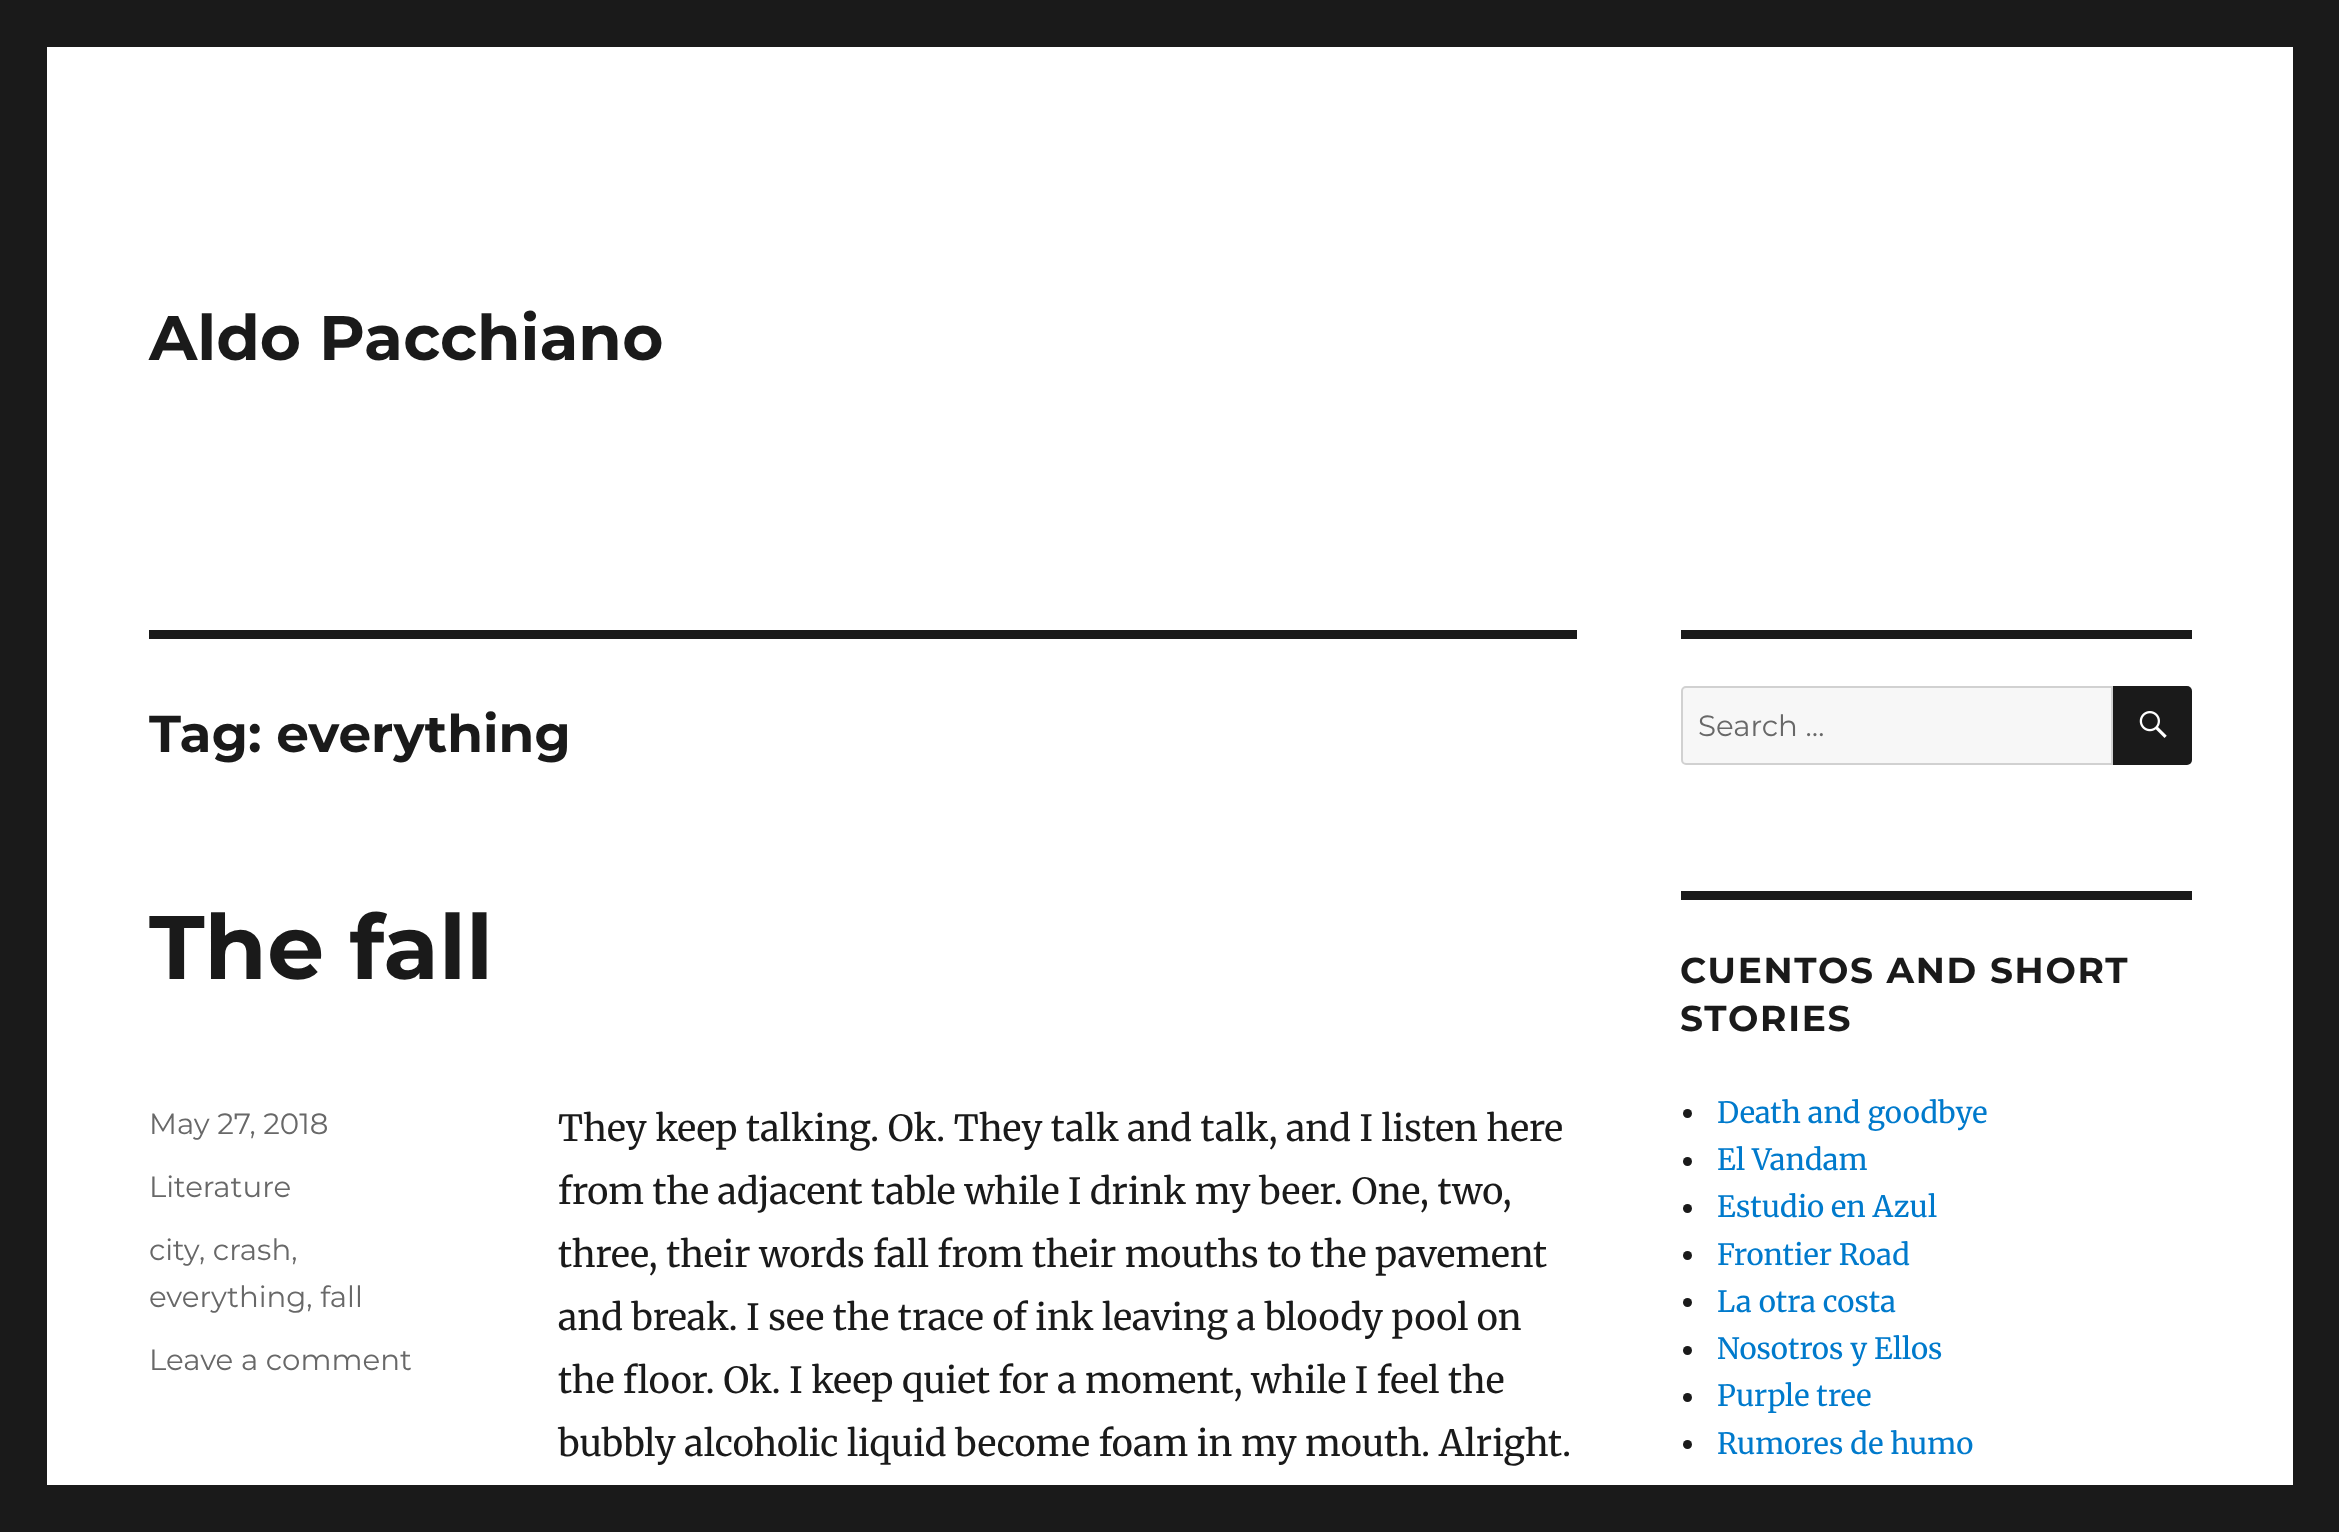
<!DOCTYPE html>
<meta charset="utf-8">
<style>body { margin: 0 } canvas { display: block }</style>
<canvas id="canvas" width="2339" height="1532"></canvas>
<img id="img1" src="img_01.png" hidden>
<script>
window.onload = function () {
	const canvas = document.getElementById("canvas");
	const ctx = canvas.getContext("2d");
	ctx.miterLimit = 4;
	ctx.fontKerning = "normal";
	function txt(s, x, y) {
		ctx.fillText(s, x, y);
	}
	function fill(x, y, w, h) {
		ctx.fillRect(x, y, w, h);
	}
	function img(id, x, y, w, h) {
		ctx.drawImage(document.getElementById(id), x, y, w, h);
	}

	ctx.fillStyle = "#1A1A1A";
	fill(0, 0, 2339, 1532);
	ctx.fillStyle = "#FFFFFF";
	fill(47, 47, 2246, 1438);
	ctx.fillStyle = "#1A1A1A";
	fill(149, 630, 1428, 9);
	fill(1681, 630, 511, 9);
	ctx.fillStyle = "#F7F7F7";
	ctx.beginPath();
	ctx.roundRect(1682, 687, 430, 77, [4, 0, 0, 4]);
	ctx.fill();
	ctx.strokeStyle = "#D1D1D1";
	ctx.lineWidth = 2;
	ctx.stroke();
	ctx.fillStyle = "#1A1A1A";
	ctx.beginPath();
	ctx.roundRect(2113, 686, 79, 79, [0, 5, 5, 0]);
	ctx.fill();
	img("img1", 2139, 711, 28, 27);
	fill(1681, 891, 511, 9);
	ctx.beginPath();
	ctx.arc(1687.5, 1113.5, 4.5, 0, Math.PI * 2);
	ctx.fill();
	ctx.beginPath();
	ctx.arc(1687.5, 1161.5, 4.5, 0, Math.PI * 2);
	ctx.fill();
	ctx.beginPath();
	ctx.arc(1687.5, 1208.5, 4.5, 0, Math.PI * 2);
	ctx.fill();
	ctx.beginPath();
	ctx.arc(1687.5, 1255.5, 4.5, 0, Math.PI * 2);
	ctx.fill();
	ctx.beginPath();
	ctx.arc(1687.5, 1302.5, 4.5, 0, Math.PI * 2);
	ctx.fill();
	ctx.beginPath();
	ctx.arc(1687.5, 1350.5, 4.5, 0, Math.PI * 2);
	ctx.fill();
	ctx.beginPath();
	ctx.arc(1687.5, 1397.5, 4.5, 0, Math.PI * 2);
	ctx.fill();
	ctx.beginPath();
	ctx.arc(1687.5, 1444.5, 4.5, 0, Math.PI * 2);
	ctx.fill();
	ctx.font = "bold 63px Montserrat";
	txt("Aldo Pacchiano", 149, 360);
	ctx.font = "bold 51.75px Montserrat";
	txt("Tag: everything", 149, 752);
	ctx.font = "bold 90px Montserrat";
	txt("The fall", 149, 979);
	ctx.font = "29.25px Montserrat";
	ctx.fillStyle = "#686868";
	txt("May 27, 2018", 149, 1134);
	txt("Literature", 149, 1197);
	txt("city", 149, 1260);
	txt(", crash,", 199, 1260);
	txt("everything, fall", 149, 1307);
	txt("Leave a comment", 149, 1370);
	ctx.font = "36px Merriweather";
	ctx.fillStyle = "#1A1A1A";
	txt("They keep talking. Ok. They talk and talk, and I listen here", 558, 1141);
	txt("from the adjacent table while I drink my beer. One, two,", 558, 1204);
	txt("three, their words fall from their mouths to the pavement", 558, 1267);
	txt("and break. I see the trace of ink leaving a bloody pool on", 558, 1330);
	txt("the floor. Ok. I keep quiet for a moment, while I feel the", 558, 1393);
	txt("bubbly alcoholic liquid become foam in my mouth. Alright.", 558, 1456);
	ctx.font = "29.25px Montserrat";
	ctx.fillStyle = "#686868";
	txt("Search …", 1698, 736);
	ctx.letterSpacing = "1.7px";
	ctx.font = "bold 36px Montserrat";
	ctx.fillStyle = "#1A1A1A";
	txt("CUENTOS AND SHORT", 1680, 983);
	txt("STORIES", 1680, 1031);
	ctx.letterSpacing = "0px";
	ctx.font = "29.25px Merriweather";
	ctx.fillStyle = "#007ACC";
	txt("Death and goodbye", 1717, 1123);
	txt("El Vandam", 1717, 1170);
	txt("Estudio en Azul", 1717, 1217);
	txt("Frontier Road", 1717, 1265);
	txt("La otra costa", 1717, 1312);
	txt("Nosotros y Ellos", 1717, 1359);
	txt("Purple tree", 1717, 1406);
	txt("Rumores de humo", 1717, 1454);
};
</script>
